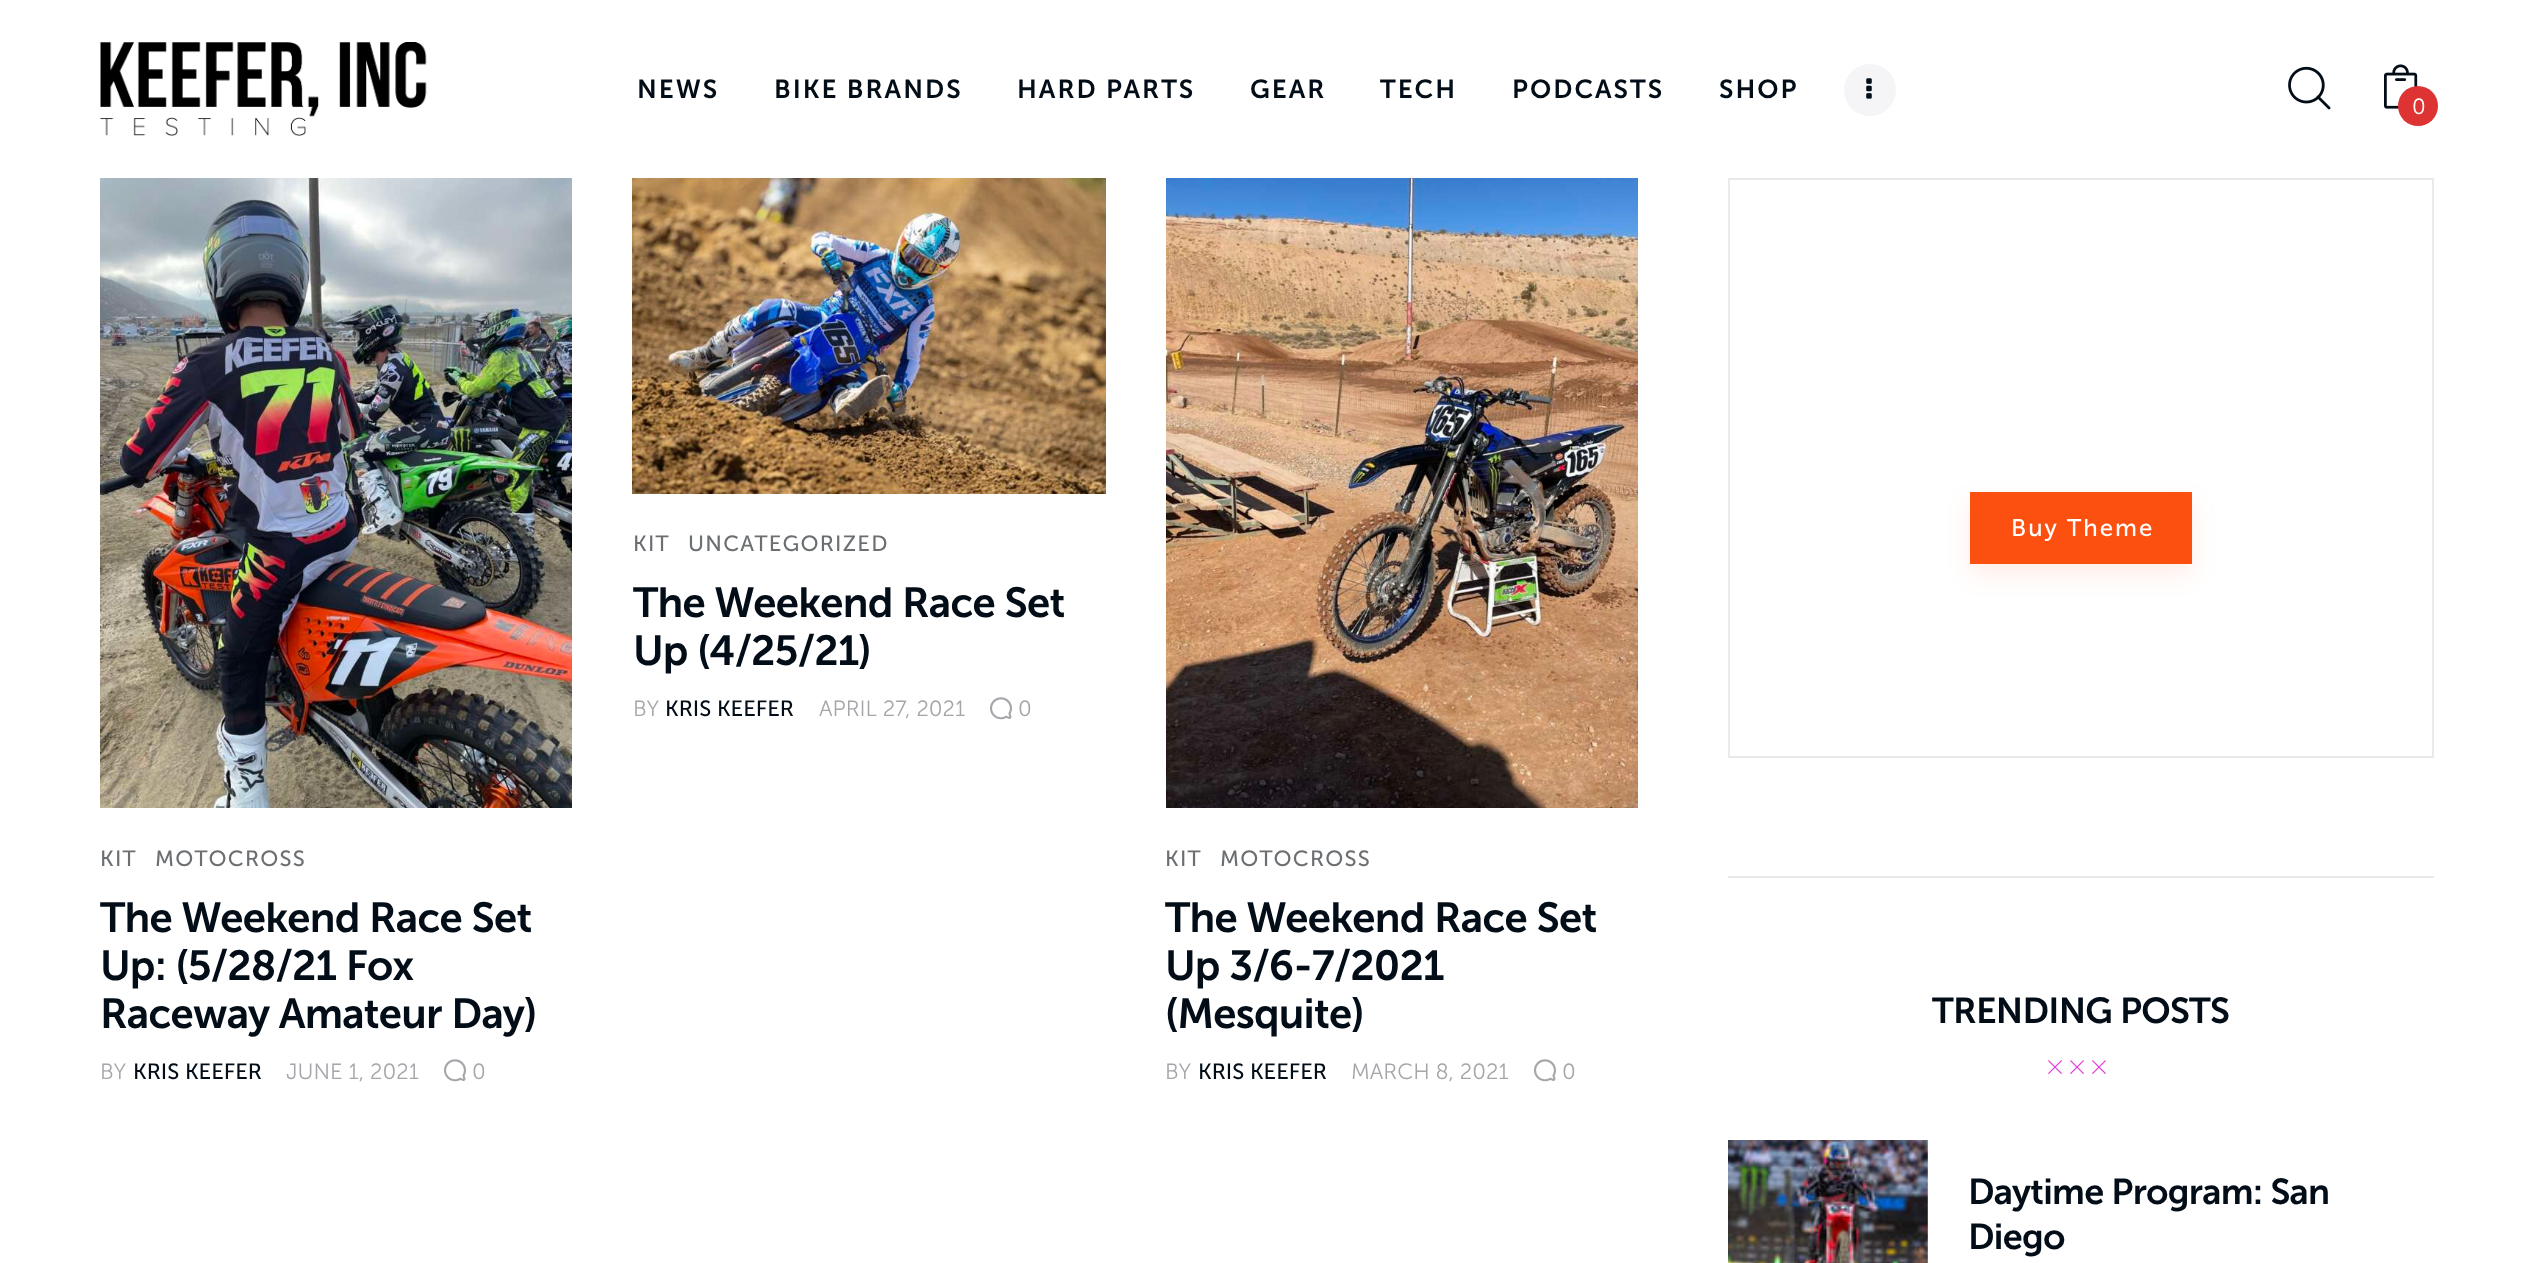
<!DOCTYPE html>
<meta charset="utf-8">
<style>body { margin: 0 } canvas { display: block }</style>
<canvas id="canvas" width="2533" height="1263"></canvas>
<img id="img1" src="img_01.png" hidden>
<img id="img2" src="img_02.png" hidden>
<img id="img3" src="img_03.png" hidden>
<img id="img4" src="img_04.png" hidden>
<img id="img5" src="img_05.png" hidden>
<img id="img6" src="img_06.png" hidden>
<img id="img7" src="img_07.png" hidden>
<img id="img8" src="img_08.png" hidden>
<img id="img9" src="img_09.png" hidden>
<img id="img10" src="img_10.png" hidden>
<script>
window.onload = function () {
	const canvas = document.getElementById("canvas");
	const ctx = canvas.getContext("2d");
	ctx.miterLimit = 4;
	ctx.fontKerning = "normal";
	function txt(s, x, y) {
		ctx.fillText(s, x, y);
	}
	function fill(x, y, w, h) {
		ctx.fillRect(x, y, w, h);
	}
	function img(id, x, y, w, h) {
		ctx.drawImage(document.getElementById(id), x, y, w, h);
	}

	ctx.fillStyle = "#FFFFFF";
	fill(0, 0, 2533, 1263);
	img("img1", 100, 42, 327, 94);
	ctx.fillStyle = "#F5F5F8";
	ctx.beginPath();
	ctx.arc(1870, 90, 26, 0, Math.PI * 2);
	ctx.fill();
	img("img2", 1866, 78, 6, 21);
	img("img3", 2288, 66, 43, 44);
	img("img4", 2384, 64, 34, 45);
	ctx.fillStyle = "#DD3333";
	ctx.beginPath();
	ctx.arc(2418, 106, 20, 0, Math.PI * 2);
	ctx.fill();
	img("img5", 632, 178, 474, 316);
	img("img6", 990, 697, 22, 23);
	img("img7", 100, 178, 472, 630);
	img("img6", 444, 1059, 22, 23);
	img("img8", 1166, 178, 472, 630);
	img("img6", 1534, 1059, 22, 23);
	ctx.strokeStyle = "#EAEAEA";
	ctx.lineWidth = 2;
	ctx.strokeRect(1729, 179, 704, 578);
	ctx.fillStyle = "rgba(252, 80, 17, 0.1)";
	ctx.filter = "blur(12px)";
	ctx.beginPath();
	ctx.rect(1970, 502, 222, 72);
	ctx.fill();
	ctx.filter = "none";
	ctx.fillStyle = "#FC5011";
	fill(1970, 492, 222, 72);
	ctx.fillStyle = "#EAEAEA";
	fill(1728, 876, 706, 2);
	img("img9", 2048, 1060, 14, 14);
	img("img9", 2070, 1060, 14, 14);
	img("img9", 2092, 1060, 14, 14);
	img("img10", 1728, 1140, 200, 123);
	ctx.letterSpacing = "2px";
	ctx.font = "600 26px 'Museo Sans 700'";
	ctx.fillStyle = "#020D18";
	txt("NEWS", 637, 98);
	txt("BIKE BRANDS", 774, 98);
	txt("HARD PARTS", 1017, 98);
	txt("GEAR", 1250, 98);
	txt("TECH", 1380, 98);
	txt("PODCASTS", 1512, 98);
	txt("SHOP", 1719, 98);
	ctx.letterSpacing = "0px";
	ctx.font = "300 22px 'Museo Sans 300'";
	ctx.fillStyle = "#FFFFFF";
	txt("0", 2412, 114);
	ctx.letterSpacing = "1.25px";
	ctx.font = "22px 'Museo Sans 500'";
	ctx.fillStyle = "#6C6F72";
	txt("KIT", 633, 551);
	txt("UNCATEGORIZED", 688, 551);
	ctx.letterSpacing = "-0.8px";
	ctx.font = "600 42px 'Museo Sans 700'";
	ctx.fillStyle = "#020D18";
	txt("The Weekend Race Set", 633, 617);
	txt("Up (4/25/21)", 633, 665);
	ctx.letterSpacing = "0px";
	ctx.font = "300 22px 'Museo Sans 300'";
	ctx.fillStyle = "#A5A6AA";
	txt("BY", 633, 716);
	ctx.font = "22px 'Museo Sans 500'";
	ctx.fillStyle = "#020D18";
	txt("KRIS KEEFER", 665, 716);
	ctx.font = "300 22px 'Museo Sans 300'";
	ctx.fillStyle = "#A5A6AA";
	txt("APRIL 27, 2021", 819, 716);
	txt("0", 1018, 716);
	ctx.letterSpacing = "1.25px";
	ctx.font = "22px 'Museo Sans 500'";
	ctx.fillStyle = "#6C6F72";
	txt("KIT", 100, 866);
	txt("MOTOCROSS", 155, 866);
	ctx.letterSpacing = "-0.8px";
	ctx.font = "600 42px 'Museo Sans 700'";
	ctx.fillStyle = "#020D18";
	txt("The Weekend Race Set", 100, 932);
	txt("Up: (5/28/21 Fox", 100, 980);
	txt("Raceway Amateur Day)", 100, 1028);
	ctx.letterSpacing = "0px";
	ctx.font = "300 22px 'Museo Sans 300'";
	ctx.fillStyle = "#A5A6AA";
	txt("BY", 100, 1079);
	ctx.font = "22px 'Museo Sans 500'";
	ctx.fillStyle = "#020D18";
	txt("KRIS KEEFER", 133, 1079);
	ctx.font = "300 22px 'Museo Sans 300'";
	ctx.fillStyle = "#A5A6AA";
	txt("JUNE 1, 2021", 286, 1079);
	txt("0", 472, 1079);
	ctx.letterSpacing = "1.25px";
	ctx.font = "22px 'Museo Sans 500'";
	ctx.fillStyle = "#6C6F72";
	txt("KIT", 1165, 866);
	txt("MOTOCROSS", 1220, 866);
	ctx.letterSpacing = "-0.8px";
	ctx.font = "600 42px 'Museo Sans 700'";
	ctx.fillStyle = "#020D18";
	txt("The Weekend Race Set", 1165, 932);
	txt("Up 3/6-7/2021", 1165, 980);
	txt("(Mesquite)", 1165, 1028);
	ctx.letterSpacing = "0px";
	ctx.font = "300 22px 'Museo Sans 300'";
	ctx.fillStyle = "#A5A6AA";
	txt("BY", 1165, 1079);
	ctx.font = "22px 'Museo Sans 500'";
	ctx.fillStyle = "#020D18";
	txt("KRIS KEEFER", 1198, 1079);
	ctx.font = "300 22px 'Museo Sans 300'";
	ctx.fillStyle = "#A5A6AA";
	txt("MARCH 8, 2021", 1351, 1079);
	txt("0", 1562, 1079);
	ctx.letterSpacing = "2px";
	ctx.font = "24px 'Museo Sans 500'";
	ctx.fillStyle = "#FFFFFF";
	txt("Buy Theme", 2011, 536);
	ctx.letterSpacing = "-0.75px";
	ctx.font = "600 36px 'Museo Sans 700'";
	ctx.fillStyle = "#020D18";
	txt("TRENDING POSTS", 1932, 1023);
	txt("Daytime Program: San", 1968, 1204);
	txt("Diego", 1968, 1249);
};
</script>
